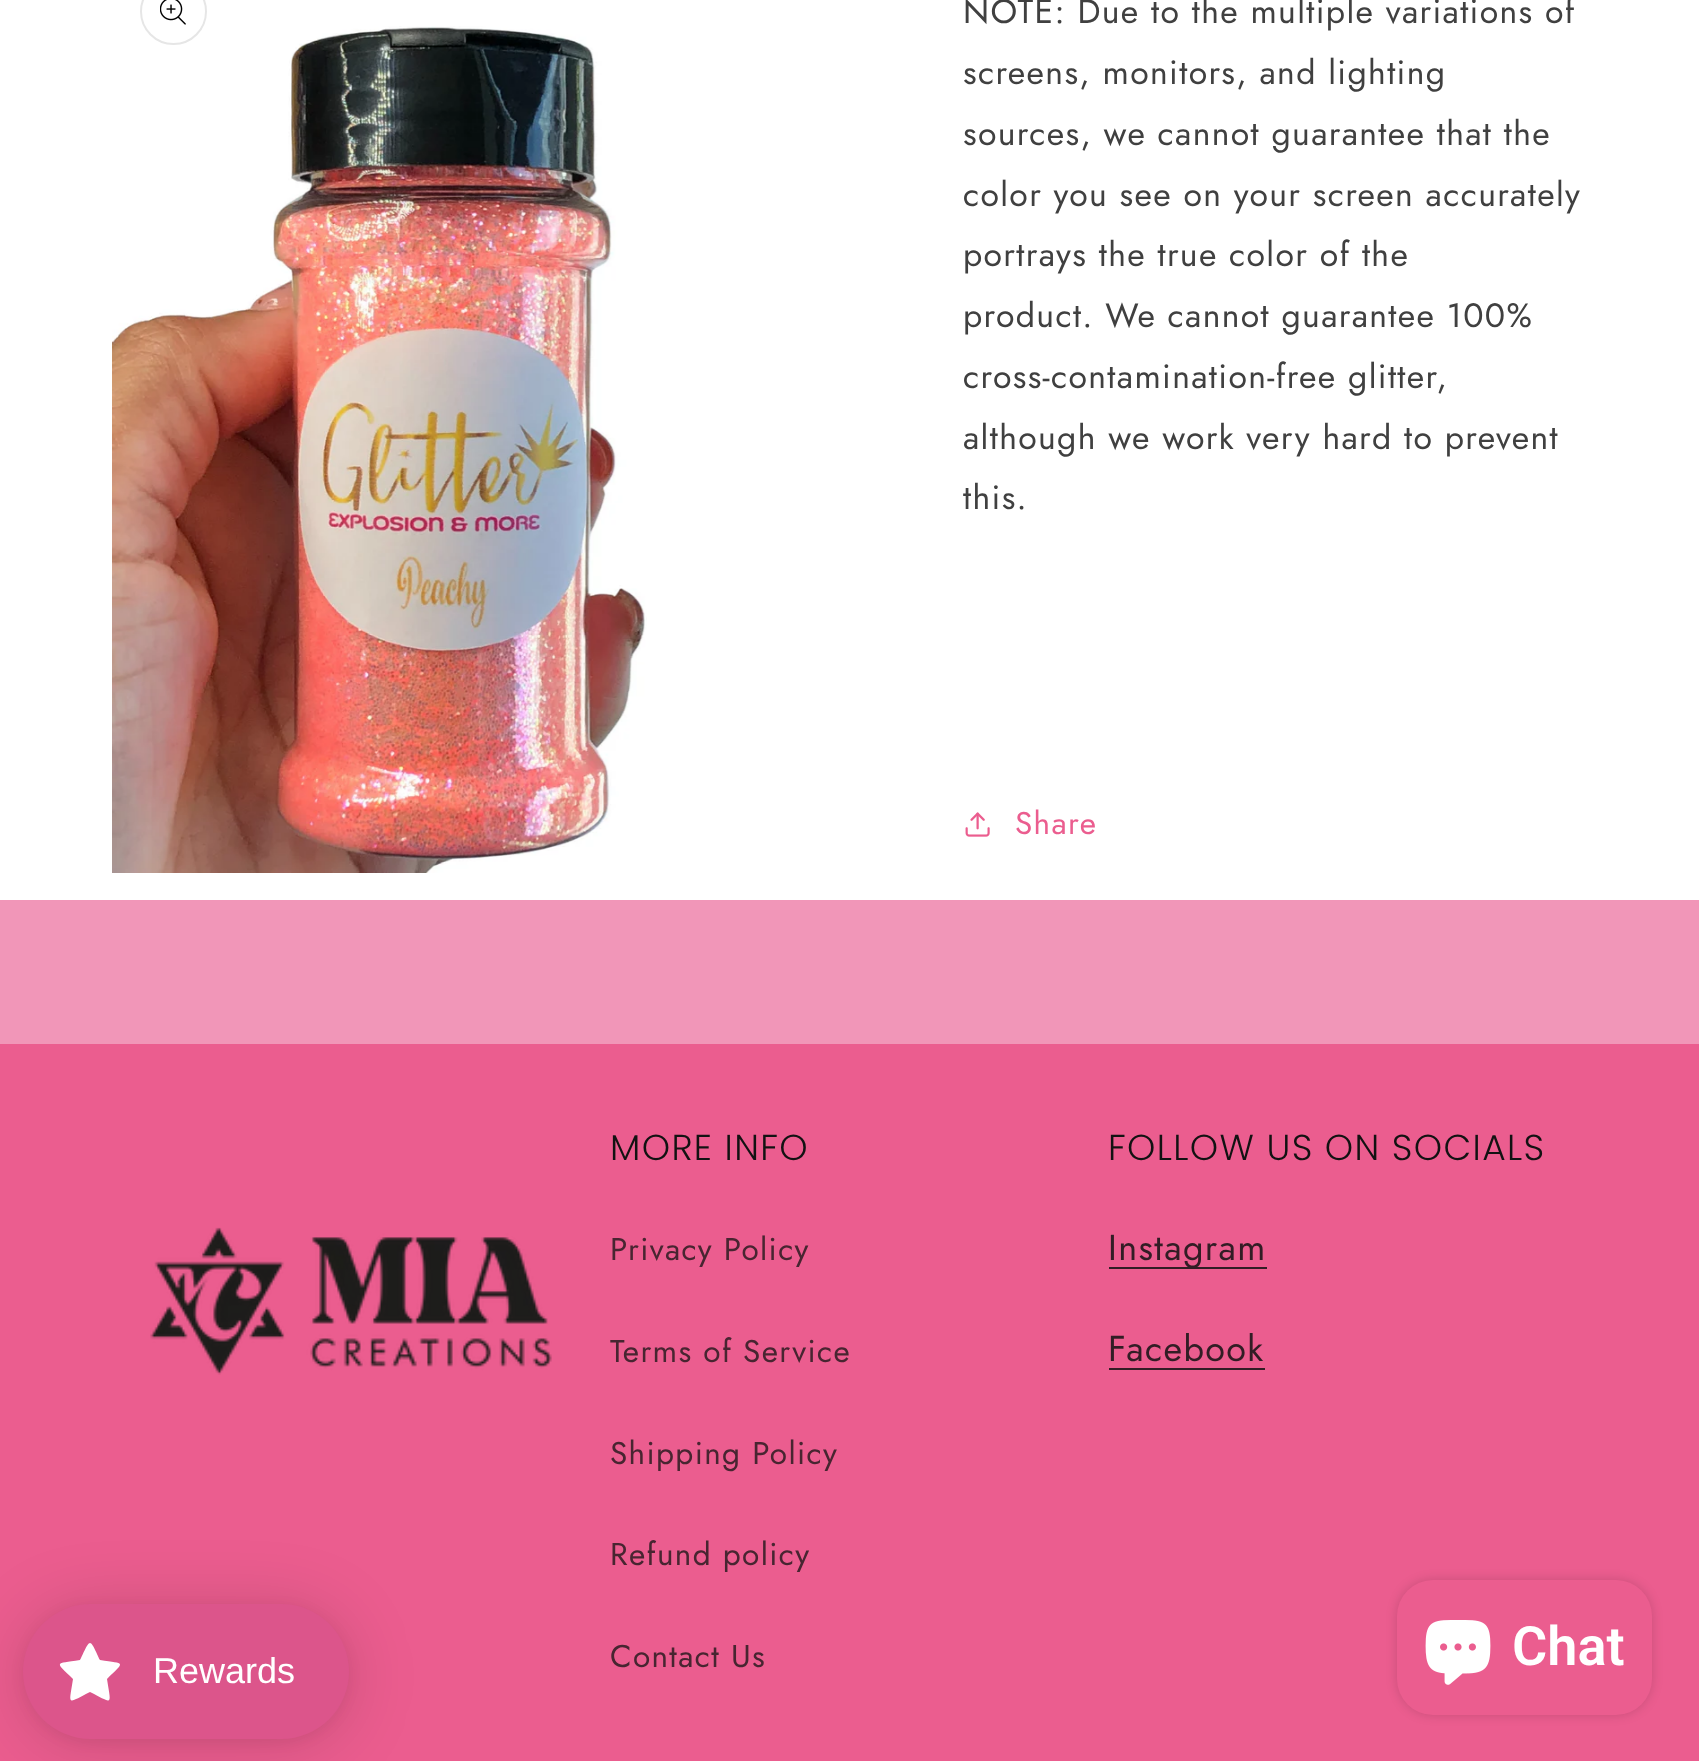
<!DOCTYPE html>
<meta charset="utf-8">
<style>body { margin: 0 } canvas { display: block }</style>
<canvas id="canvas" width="1699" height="1761"></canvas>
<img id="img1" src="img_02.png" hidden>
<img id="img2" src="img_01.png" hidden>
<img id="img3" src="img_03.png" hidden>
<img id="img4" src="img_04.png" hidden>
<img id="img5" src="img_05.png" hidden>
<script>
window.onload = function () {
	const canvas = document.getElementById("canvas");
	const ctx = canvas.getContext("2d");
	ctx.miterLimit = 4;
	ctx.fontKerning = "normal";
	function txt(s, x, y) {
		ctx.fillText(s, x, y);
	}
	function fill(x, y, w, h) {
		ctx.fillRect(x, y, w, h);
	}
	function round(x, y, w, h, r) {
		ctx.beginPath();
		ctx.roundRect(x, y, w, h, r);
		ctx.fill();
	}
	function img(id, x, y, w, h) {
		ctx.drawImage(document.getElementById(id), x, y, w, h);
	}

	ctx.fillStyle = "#FFFFFF";
	fill(0, 0, 1699, 1761);
	img("img1", 112, 26, 535, 847);
	ctx.beginPath();
	ctx.arc(173.5, 11.5, 32.5, 0, Math.PI * 2);
	ctx.strokeStyle = "#E6E6E6";
	ctx.lineWidth = 2;
	ctx.stroke();
	img("img2", 160, 0, 26, 25);
	img("img3", 965, 812, 25, 25);
	ctx.fillStyle = "#F196B8";
	fill(0, 900, 1699, 144);
	ctx.fillStyle = "#EB5D8F";
	fill(0, 1044, 1699, 717);
	img("img4", 150, 1227, 402, 148);
	ctx.fillStyle = "#331D25";
	fill(1109, 1267, 158, 2);
	fill(1109, 1368, 156, 2);
	ctx.fillStyle = "rgba(0, 0, 0, 0.15)";
	ctx.filter = "blur(5.5px)";
	ctx.beginPath();
	ctx.roundRect(1397, 1580, 255, 135, 36);
	ctx.fill();
	ctx.filter = "none";
	ctx.fillStyle = "#EB5D8F";
	round(1397, 1580, 255, 135, 36);
	img("img5", 1425, 1620, 66, 65);
	ctx.fillStyle = "rgba(0, 0, 0, 0.15)";
	ctx.filter = "blur(34px)";
	ctx.beginPath();
	ctx.roundRect(23, 1609, 326, 135, 67.5);
	ctx.fill();
	ctx.filter = "none";
	ctx.fillStyle = "rgba(0, 0, 0, 0.05)";
	ctx.filter = "blur(7px)";
	ctx.beginPath();
	ctx.roundRect(23, 1607, 326, 135, 67.5);
	ctx.fill();
	ctx.filter = "none";
	ctx.fillStyle = "#DC558B";
	round(23, 1604, 326, 135, 67.5);
	ctx.fillStyle = "#FFFFFF";
	ctx.beginPath();
	ctx.moveTo(90, 1643);
	ctx.bezierCurveTo(87, 1643, 82, 1657, 80, 1660);
	ctx.bezierCurveTo(54, 1664, 55, 1661, 73, 1679);
	ctx.bezierCurveTo(69, 1706, 66, 1704, 90, 1692);
	ctx.bezierCurveTo(114, 1704, 111, 1706, 107, 1679);
	ctx.bezierCurveTo(125, 1661, 126, 1664, 100, 1660);
	ctx.bezierCurveTo(98, 1657, 93, 1643, 90, 1643);
	ctx.closePath();
	ctx.fill();
	ctx.letterSpacing = "1.35px";
	ctx.font = "33.75px Jost";
	ctx.fillStyle = "#404040";
	txt("NOTE: Due to the multiple variations of", 963, 23);
	txt("screens, monitors, and lighting", 963, 84);
	txt("sources, we cannot guarantee that the", 963, 145);
	txt("color you see on your screen accurately", 963, 206);
	txt("portrays the true color of the", 963, 266);
	txt("product. We cannot guarantee 100%", 963, 327);
	txt("cross-contamination-free glitter,", 963, 388);
	txt("although we work very hard to prevent", 963, 449);
	txt("this.", 963, 509);
	ctx.font = "31.5px Jost";
	ctx.fillStyle = "#EB5D8F";
	txt("Share", 1015, 834);
	ctx.font = "300 36px Poppins";
	ctx.fillStyle = "#121212";
	txt("MORE INFO", 610, 1160);
	ctx.font = "31.5px Jost";
	ctx.fillStyle = "#482531";
	txt("Privacy Policy", 610, 1260);
	txt("Terms of Service", 610, 1362);
	txt("Shipping Policy", 610, 1464);
	txt("Refund policy", 610, 1565);
	txt("Contact Us", 610, 1667);
	ctx.font = "300 36px Poppins";
	ctx.fillStyle = "#121212";
	txt("FOLLOW US ON SOCIALS", 1108, 1160);
	ctx.font = "36px Jost";
	ctx.fillStyle = "#321D25";
	txt("Instagram", 1108, 1260);
	txt("Facebook", 1108, 1361);
	ctx.letterSpacing = "0px";
	ctx.font = "600 54px Roboto";
	ctx.fillStyle = "#FFFFFF";
	txt("Chat", 1512, 1665);
	ctx.font = "36px Liberation Sans";
	txt("Rewards", 153, 1683);
};
</script>
